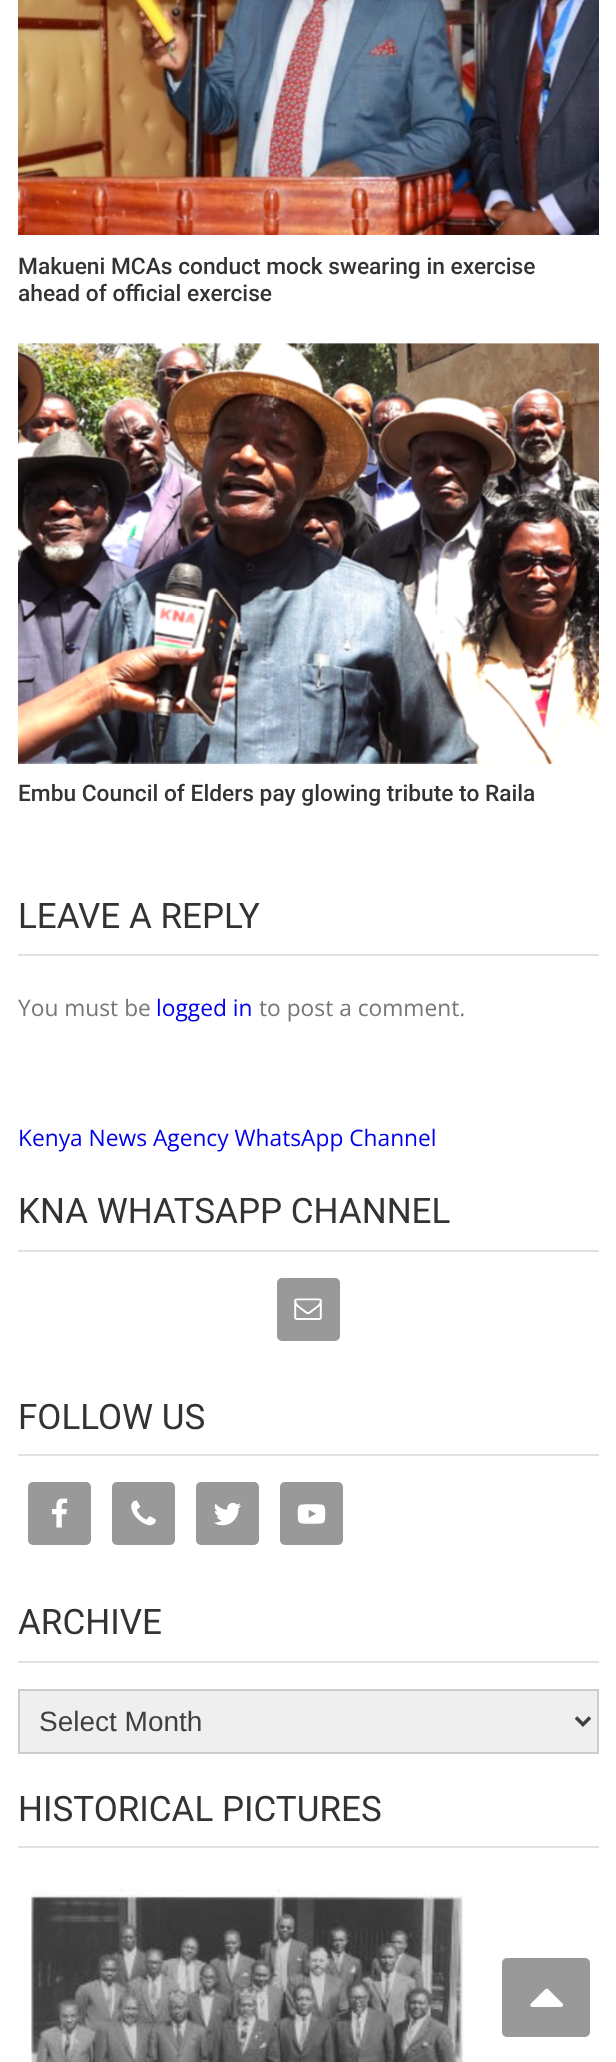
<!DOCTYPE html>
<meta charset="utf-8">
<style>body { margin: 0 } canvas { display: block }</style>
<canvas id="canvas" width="616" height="2062"></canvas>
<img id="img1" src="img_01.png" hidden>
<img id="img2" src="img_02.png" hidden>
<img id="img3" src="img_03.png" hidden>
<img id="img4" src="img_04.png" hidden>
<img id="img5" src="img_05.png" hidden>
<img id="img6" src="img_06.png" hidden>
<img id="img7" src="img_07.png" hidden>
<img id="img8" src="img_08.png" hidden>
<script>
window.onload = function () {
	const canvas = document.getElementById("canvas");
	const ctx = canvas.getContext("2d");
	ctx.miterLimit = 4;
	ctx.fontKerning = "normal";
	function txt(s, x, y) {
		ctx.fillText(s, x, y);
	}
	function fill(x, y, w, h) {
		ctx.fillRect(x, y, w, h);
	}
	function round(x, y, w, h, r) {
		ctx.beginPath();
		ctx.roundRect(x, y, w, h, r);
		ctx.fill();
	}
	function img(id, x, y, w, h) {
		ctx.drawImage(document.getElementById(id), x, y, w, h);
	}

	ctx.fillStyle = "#FFFFFF";
	fill(0, 0, 616, 2062);
	img("img1", 18, 0, 581, 235);
	img("img2", 18, 343, 581, 421);
	ctx.fillStyle = "#E1E1E1";
	fill(18, 954, 581, 2);
	fill(18, 1250, 581, 2);
	ctx.fillStyle = "#999999";
	round(277, 1278, 63, 63, 5);
	img("img3", 294, 1298, 28, 22);
	ctx.fillStyle = "#E1E1E1";
	fill(18, 1454, 581, 2);
	ctx.fillStyle = "#999999";
	round(28, 1482, 63, 63, 5);
	img("img4", 51, 1498, 17, 30);
	round(112, 1482, 63, 63, 5);
	img("img5", 131, 1500, 25, 26);
	round(196, 1482, 63, 63, 5);
	img("img6", 214, 1502, 28, 24);
	round(280, 1482, 63, 63, 5);
	img("img7", 297, 1504, 29, 20);
	ctx.fillStyle = "#E1E1E1";
	fill(18, 1661, 581, 2);
	ctx.fillStyle = "#EFEFEF";
	ctx.beginPath();
	ctx.rect(19, 1690, 579, 63);
	ctx.fill();
	ctx.strokeStyle = "#CCCCCC";
	ctx.lineWidth = 2;
	ctx.stroke();
	ctx.beginPath();
	ctx.moveTo(576, 1717.5);
	ctx.lineTo(583, 1724.5);
	ctx.lineTo(590, 1717.5);
	ctx.strokeStyle = "#404040";
	ctx.lineWidth = 3.5;
	ctx.stroke();
	ctx.fillStyle = "#E1E1E1";
	fill(18, 1846, 581, 2);
	img("img8", 31, 1888, 434, 174);
	ctx.fillStyle = "#999999";
	round(502, 1958, 88, 79, 5);
	ctx.fillStyle = "#FFFFFF";
	ctx.beginPath();
	ctx.moveTo(562.5, 2003.5);
	ctx.lineTo(563, 2004);
	ctx.bezierCurveTo(564.5, 2008, 557, 2007, 556.5, 2007);
	ctx.lineTo(532, 2007);
	ctx.bezierCurveTo(530.5, 2006.5, 529.5, 2004.5, 531, 2003.5);
	ctx.lineTo(543, 1991.5);
	ctx.bezierCurveTo(547, 1987.5, 546.5, 1987.5, 550.5, 1991.5);
	ctx.closePath();
	ctx.fill();
	ctx.font = "500 22.75px Roboto";
	ctx.fillStyle = "#333333";
	txt("Makueni MCAs conduct mock swearing in exercise", 18, 274);
	txt("ahead of official exercise", 18, 301);
	txt("Embu Council of Elders pay glowing tribute to Raila", 18, 801);
	ctx.font = "35px Roboto";
	txt("LEAVE A REPLY", 18, 928);
	ctx.font = "22.75px Open Sans";
	ctx.fillStyle = "#777777";
	txt("You must be", 18, 1016);
	ctx.fillStyle = "#0000EE";
	txt("logged in", 156, 1016);
	ctx.fillStyle = "#777777";
	txt("to post a comment.", 259, 1016);
	ctx.fillStyle = "#0000EE";
	txt("Kenya News Agency WhatsApp Channel", 18, 1146);
	ctx.font = "35px Roboto";
	ctx.fillStyle = "#333333";
	txt("KNA WHATSAPP CHANNEL", 18, 1223);
	txt("FOLLOW US", 18, 1429);
	txt("ARCHIVE", 18, 1634);
	ctx.font = "28px Liberation Sans";
	ctx.fillStyle = "#404040";
	txt("Select Month", 39, 1731);
	ctx.font = "35px Roboto";
	ctx.fillStyle = "#333333";
	txt("HISTORICAL PICTURES", 18, 1821);
};
</script>
